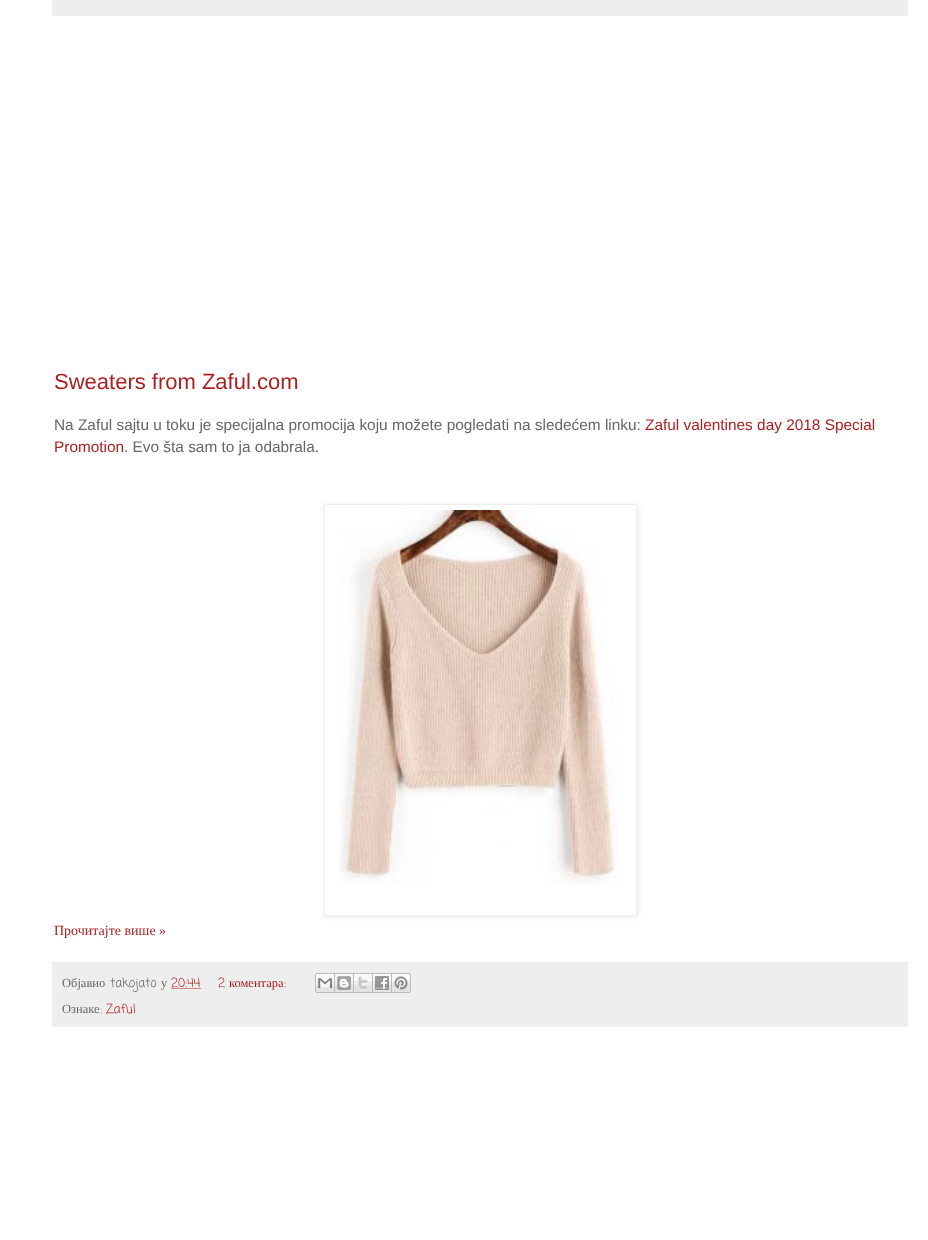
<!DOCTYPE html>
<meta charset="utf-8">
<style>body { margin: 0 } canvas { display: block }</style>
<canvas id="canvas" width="928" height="1240"></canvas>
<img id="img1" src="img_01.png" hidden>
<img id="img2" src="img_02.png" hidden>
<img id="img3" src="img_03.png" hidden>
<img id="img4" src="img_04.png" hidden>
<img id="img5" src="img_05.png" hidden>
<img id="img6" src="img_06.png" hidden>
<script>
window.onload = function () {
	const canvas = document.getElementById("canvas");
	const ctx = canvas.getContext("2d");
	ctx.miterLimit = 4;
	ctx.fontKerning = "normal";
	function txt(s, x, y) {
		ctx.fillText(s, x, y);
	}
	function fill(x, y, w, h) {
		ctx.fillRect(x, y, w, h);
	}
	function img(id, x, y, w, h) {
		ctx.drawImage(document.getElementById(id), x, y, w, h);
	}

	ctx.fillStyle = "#FFFFFF";
	fill(0, 0, 928, 1240);
	ctx.fillStyle = "#EEEEEE";
	fill(52, 0, 856, 16);
	ctx.save();
	ctx.beginPath();
	ctx.moveTo(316, 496);
	ctx.lineTo(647, 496);
	ctx.lineTo(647, 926);
	ctx.lineTo(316, 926);
	ctx.closePath();
	ctx.moveTo(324, 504);
	ctx.lineTo(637, 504);
	ctx.lineTo(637, 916);
	ctx.lineTo(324, 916);
	ctx.closePath();
	ctx.clip("evenodd");
	ctx.fillStyle = "rgba(0, 0, 0, 0.1)";
	ctx.filter = "blur(2.5px)";
	ctx.beginPath();
	ctx.rect(325, 505, 313, 412);
	ctx.fill();
	ctx.filter = "none";
	ctx.restore();
	ctx.strokeStyle = "#EEEEEE";
	ctx.strokeRect(324.5, 504.5, 312, 411);
	img("img1", 339, 510, 279, 375);
	fill(52, 962, 856, 65);
	ctx.beginPath();
	ctx.moveTo(171.5, 988.5);
	ctx.lineTo(201, 988.5);
	ctx.strokeStyle = "#AC1F1F";
	ctx.setLineDash([1, 1]);
	ctx.stroke();
	img("img2", 315, 973, 20, 20);
	img("img3", 335, 973, 19, 20);
	img("img4", 354, 973, 19, 20);
	img("img5", 373, 973, 19, 20);
	img("img6", 392, 973, 19, 20);
	ctx.font = "22px Liberation Sans";
	ctx.fillStyle = "#AC1F1F";
	txt("Sweaters from Zaful.com", 54, 389);
	ctx.font = "15.4px Liberation Sans";
	ctx.fillStyle = "#666666";
	txt("Na Zaful sajtu u toku je specijalna promocija koju možete pogledati na sledećem linku:", 54, 430);
	ctx.fillStyle = "#AC1F1F";
	txt("Zaful valentines day 2018 Special", 645, 430);
	txt("Promotion", 54, 452);
	ctx.fillStyle = "#666666";
	txt(". Evo šta sam to ja odabrala.", 124, 452);
	ctx.font = "14px Liberation Serif";
	ctx.fillStyle = "#AC1F1F";
	txt("Прочитајте више »", 54, 935);
	ctx.font = "12.5px Liberation Serif";
	ctx.fillStyle = "#666666";
	txt("Објавио", 62, 987);
	ctx.font = "12.5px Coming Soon";
	txt("takojato", 110, 987);
	ctx.font = "12.5px Liberation Serif";
	txt("у", 161, 987);
	ctx.font = "12.5px Coming Soon";
	ctx.fillStyle = "#AC1F1F";
	txt("20:44", 171, 987);
	txt("2", 218, 987);
	ctx.font = "12.5px Liberation Serif";
	txt("коментара", 229, 987);
	ctx.font = "12.5px Coming Soon";
	txt(":", 284, 987);
	ctx.font = "12.5px Liberation Serif";
	ctx.fillStyle = "#666666";
	txt("Ознаке", 62, 1013);
	ctx.font = "12.5px Coming Soon";
	txt(":", 100, 1013);
	ctx.fillStyle = "#AC1F1F";
	txt("Zaful", 106, 1013);
};
</script>
